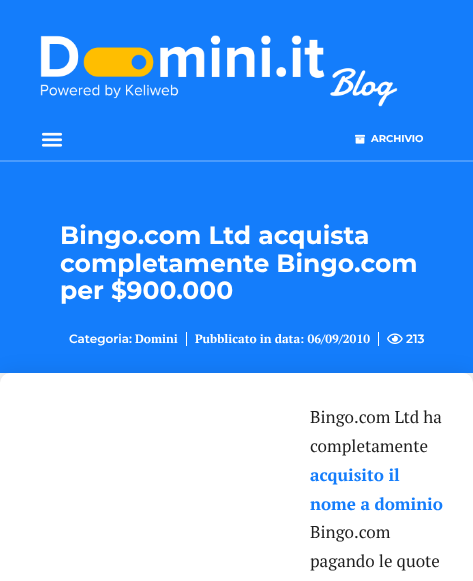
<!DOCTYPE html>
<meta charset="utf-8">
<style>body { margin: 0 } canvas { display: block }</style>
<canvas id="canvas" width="473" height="581"></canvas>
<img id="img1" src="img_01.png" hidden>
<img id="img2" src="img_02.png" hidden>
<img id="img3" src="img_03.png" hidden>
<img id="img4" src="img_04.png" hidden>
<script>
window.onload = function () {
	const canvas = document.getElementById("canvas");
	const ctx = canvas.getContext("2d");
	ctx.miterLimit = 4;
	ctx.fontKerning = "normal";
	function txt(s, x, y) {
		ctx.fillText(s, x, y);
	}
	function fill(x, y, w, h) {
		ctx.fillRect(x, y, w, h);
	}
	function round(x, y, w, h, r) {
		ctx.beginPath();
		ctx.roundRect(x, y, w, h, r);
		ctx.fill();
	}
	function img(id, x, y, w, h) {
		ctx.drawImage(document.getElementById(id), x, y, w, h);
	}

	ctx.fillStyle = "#F5F5F5";
	fill(0, 0, 473, 581);
	ctx.fillStyle = "#147DFB";
	fill(0, 0, 473, 160);
	img("img1", 40, 35, 358, 72);
	img("img2", 41, 132, 22, 15);
	img("img3", 355, 134, 10, 10);
	fill(0, 162, 473, 211);
	ctx.fillStyle = "#4A9BFC";
	fill(0, 160, 473, 2);
	ctx.fillStyle = "#FFFFFF";
	fill(186, 332, 1, 14);
	fill(378, 332, 1, 14);
	img("img4", 387, 333, 16, 11);
	ctx.fillStyle = "rgba(0, 0, 0, 0.09)";
	ctx.filter = "blur(10px)";
	ctx.beginPath();
	ctx.roundRect(0, 373, 473, 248, 10);
	ctx.fill();
	ctx.filter = "none";
	ctx.fillStyle = "#FFFFFF";
	round(0, 373, 473, 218, 10);
	ctx.font = "bold 10px Montserrat";
	txt("ARCHIVIO", 371, 142);
	ctx.font = "bold 25px Montserrat";
	txt("Bingo.com Ltd acquista", 60, 244);
	txt("completamente Bingo.com", 60, 272);
	txt("per $900.000", 60, 299);
	ctx.font = "600 12px Montserrat";
	txt("Categoria:", 69, 343);
	ctx.font = "bold 12px PT Serif";
	txt("Domini", 135, 343);
	txt("Pubblicato in data: 06/09/2010", 195, 343);
	ctx.font = "600 12px Montserrat";
	txt("213", 406, 343);
	ctx.font = "17px PT Serif";
	ctx.fillStyle = "#1F1F1F";
	txt("Bingo.com Ltd ha", 310, 423);
	txt("completamente", 310, 452);
	ctx.font = "bold 17px PT Serif";
	ctx.fillStyle = "#147DFB";
	txt("acquisito il", 310, 481);
	txt("nome a dominio", 310, 510);
	ctx.font = "17px PT Serif";
	ctx.fillStyle = "#1F1F1F";
	txt("Bingo.com", 310, 538);
	txt("pagando le quote", 310, 567);
};
</script>
